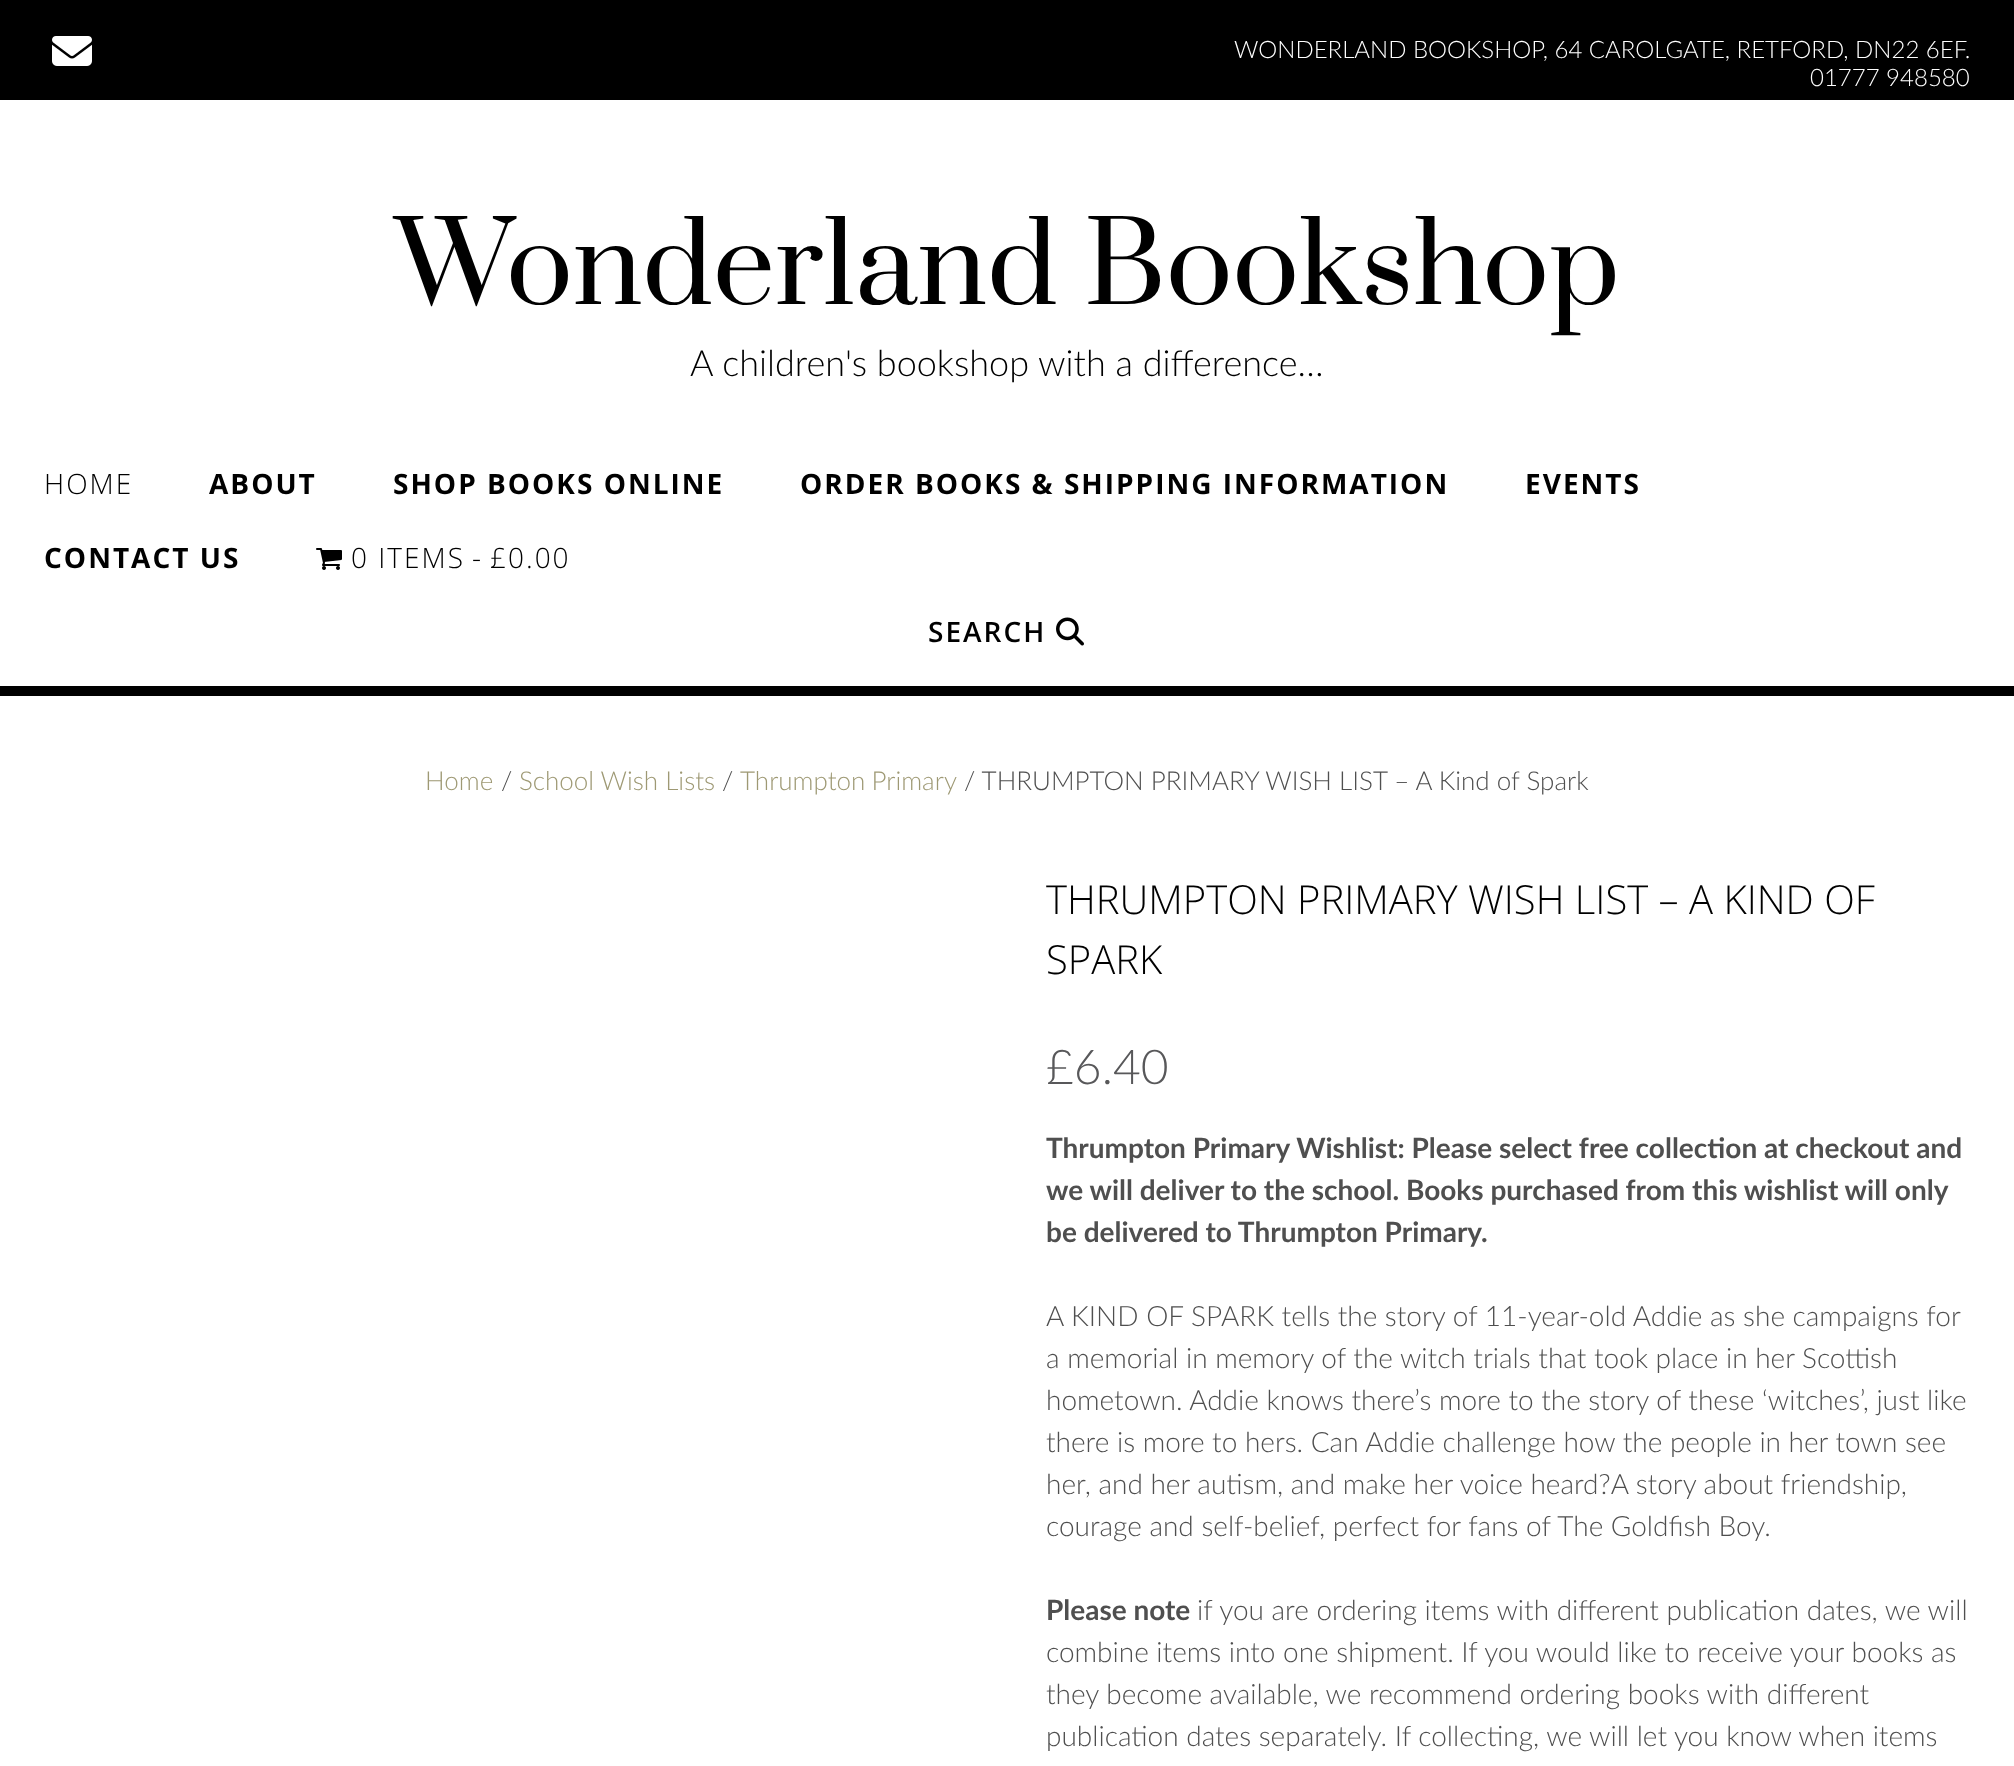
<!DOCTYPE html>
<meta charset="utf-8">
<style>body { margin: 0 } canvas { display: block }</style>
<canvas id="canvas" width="2014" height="1766"></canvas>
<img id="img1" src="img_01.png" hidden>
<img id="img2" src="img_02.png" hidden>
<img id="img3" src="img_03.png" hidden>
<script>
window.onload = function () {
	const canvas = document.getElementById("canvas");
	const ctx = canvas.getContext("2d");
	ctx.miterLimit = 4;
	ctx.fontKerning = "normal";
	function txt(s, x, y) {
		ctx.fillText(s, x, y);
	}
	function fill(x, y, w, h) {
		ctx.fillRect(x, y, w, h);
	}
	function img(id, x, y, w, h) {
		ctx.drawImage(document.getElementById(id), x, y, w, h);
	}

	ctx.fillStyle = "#FFFFFF";
	fill(0, 0, 2014, 1766);
	ctx.fillStyle = "#000000";
	fill(0, 0, 2014, 100);
	img("img1", 52, 36, 40, 30);
	fill(0, 686, 2014, 10);
	img("img2", 316, 548, 26, 22);
	img("img3", 1056, 617, 28, 29);
	ctx.font = "300 24px Lato";
	ctx.fillStyle = "#FFFFFF";
	txt("WONDERLAND BOOKSHOP, 64 CAROLGATE, RETFORD, DN22 6EF.", 1234, 58);
	txt("01777 948580", 1810, 86);
	ctx.font = "110px Prata";
	ctx.fillStyle = "#000000";
	txt("Wonderland Bookshop", 395, 304);
	ctx.font = "300 36px Lato";
	txt("A children's bookshop with a difference…", 690, 376);
	ctx.letterSpacing = "2px";
	ctx.font = "300 28px Open Sans";
	txt("HOME", 44, 494);
	ctx.font = "bold 28px Open Sans";
	txt("ABOUT", 209, 494);
	txt("SHOP BOOKS ONLINE", 393, 494);
	txt("ORDER BOOKS & SHIPPING INFORMATION", 800, 494);
	txt("EVENTS", 1525, 494);
	txt("CONTACT US", 44, 568);
	ctx.font = "300 28px Open Sans";
	txt("0 ITEMS", 351, 568);
	txt("-", 472, 568);
	txt("£0.00", 490, 568);
	ctx.font = "600 28px Open Sans";
	txt("SEARCH", 928, 642);
	ctx.letterSpacing = "0px";
	ctx.font = "300 26px Lato";
	ctx.fillStyle = "#9E9974";
	txt("Home", 425, 790);
	ctx.fillStyle = "#4F4F4F";
	txt("/", 501, 790);
	ctx.fillStyle = "#9E9974";
	txt("School Wish Lists", 519, 790);
	ctx.fillStyle = "#4F4F4F";
	txt("/", 722, 790);
	ctx.wordSpacing = "-1px";
	ctx.fillStyle = "#9E9974";
	txt("Thrumpton Primary", 740, 790);
	ctx.wordSpacing = "0px";
	ctx.fillStyle = "#4F4F4F";
	txt("/ THRUMPTON PRIMARY WISH LIST – A Kind of Spark", 964, 790);
	ctx.font = "300 40px Open Sans";
	ctx.fillStyle = "#000000";
	txt("THRUMPTON PRIMARY WISH LIST – A KIND OF", 1046, 914);
	txt("SPARK", 1046, 974);
	ctx.font = "300 48px Lato";
	ctx.fillStyle = "#58585A";
	txt("£6.40", 1046, 1084);
	ctx.font = "bold 28px Lato";
	ctx.fillStyle = "#4F4F4F";
	txt("Thrumpton Primary Wishlist: Please select free collection at checkout and", 1046, 1158);
	txt("we will deliver to the school. Books purchased from this wishlist will only", 1046, 1200);
	txt("be delivered to Thrumpton Primary.", 1046, 1242);
	ctx.font = "300 28px Lato";
	txt("A KIND OF SPARK tells the story of 11-year-old Addie as she campaigns for", 1046, 1326);
	txt("a memorial in memory of the witch trials that took place in her Scottish", 1046, 1368);
	txt("hometown. Addie knows there’s more to the story of these ‘witches’, just like", 1046, 1410);
	txt("there is more to hers. Can Addie challenge how the people in her town see", 1046, 1452);
	txt("her, and her autism, and make her voice heard?A story about friendship,", 1046, 1494);
	txt("courage and self-belief, perfect for fans of The Goldfish Boy.", 1046, 1536);
	ctx.font = "bold 28px Lato";
	txt("Please note", 1046, 1620);
	ctx.font = "300 28px Lato";
	txt("if you are ordering items with different publication dates, we will", 1197, 1620);
	txt("combine items into one shipment. If you would like to receive your books as", 1046, 1662);
	txt("they become available, we recommend ordering books with different", 1046, 1704);
	txt("publication dates separately. If collecting, we will let you know when items", 1046, 1746);
};
</script>
